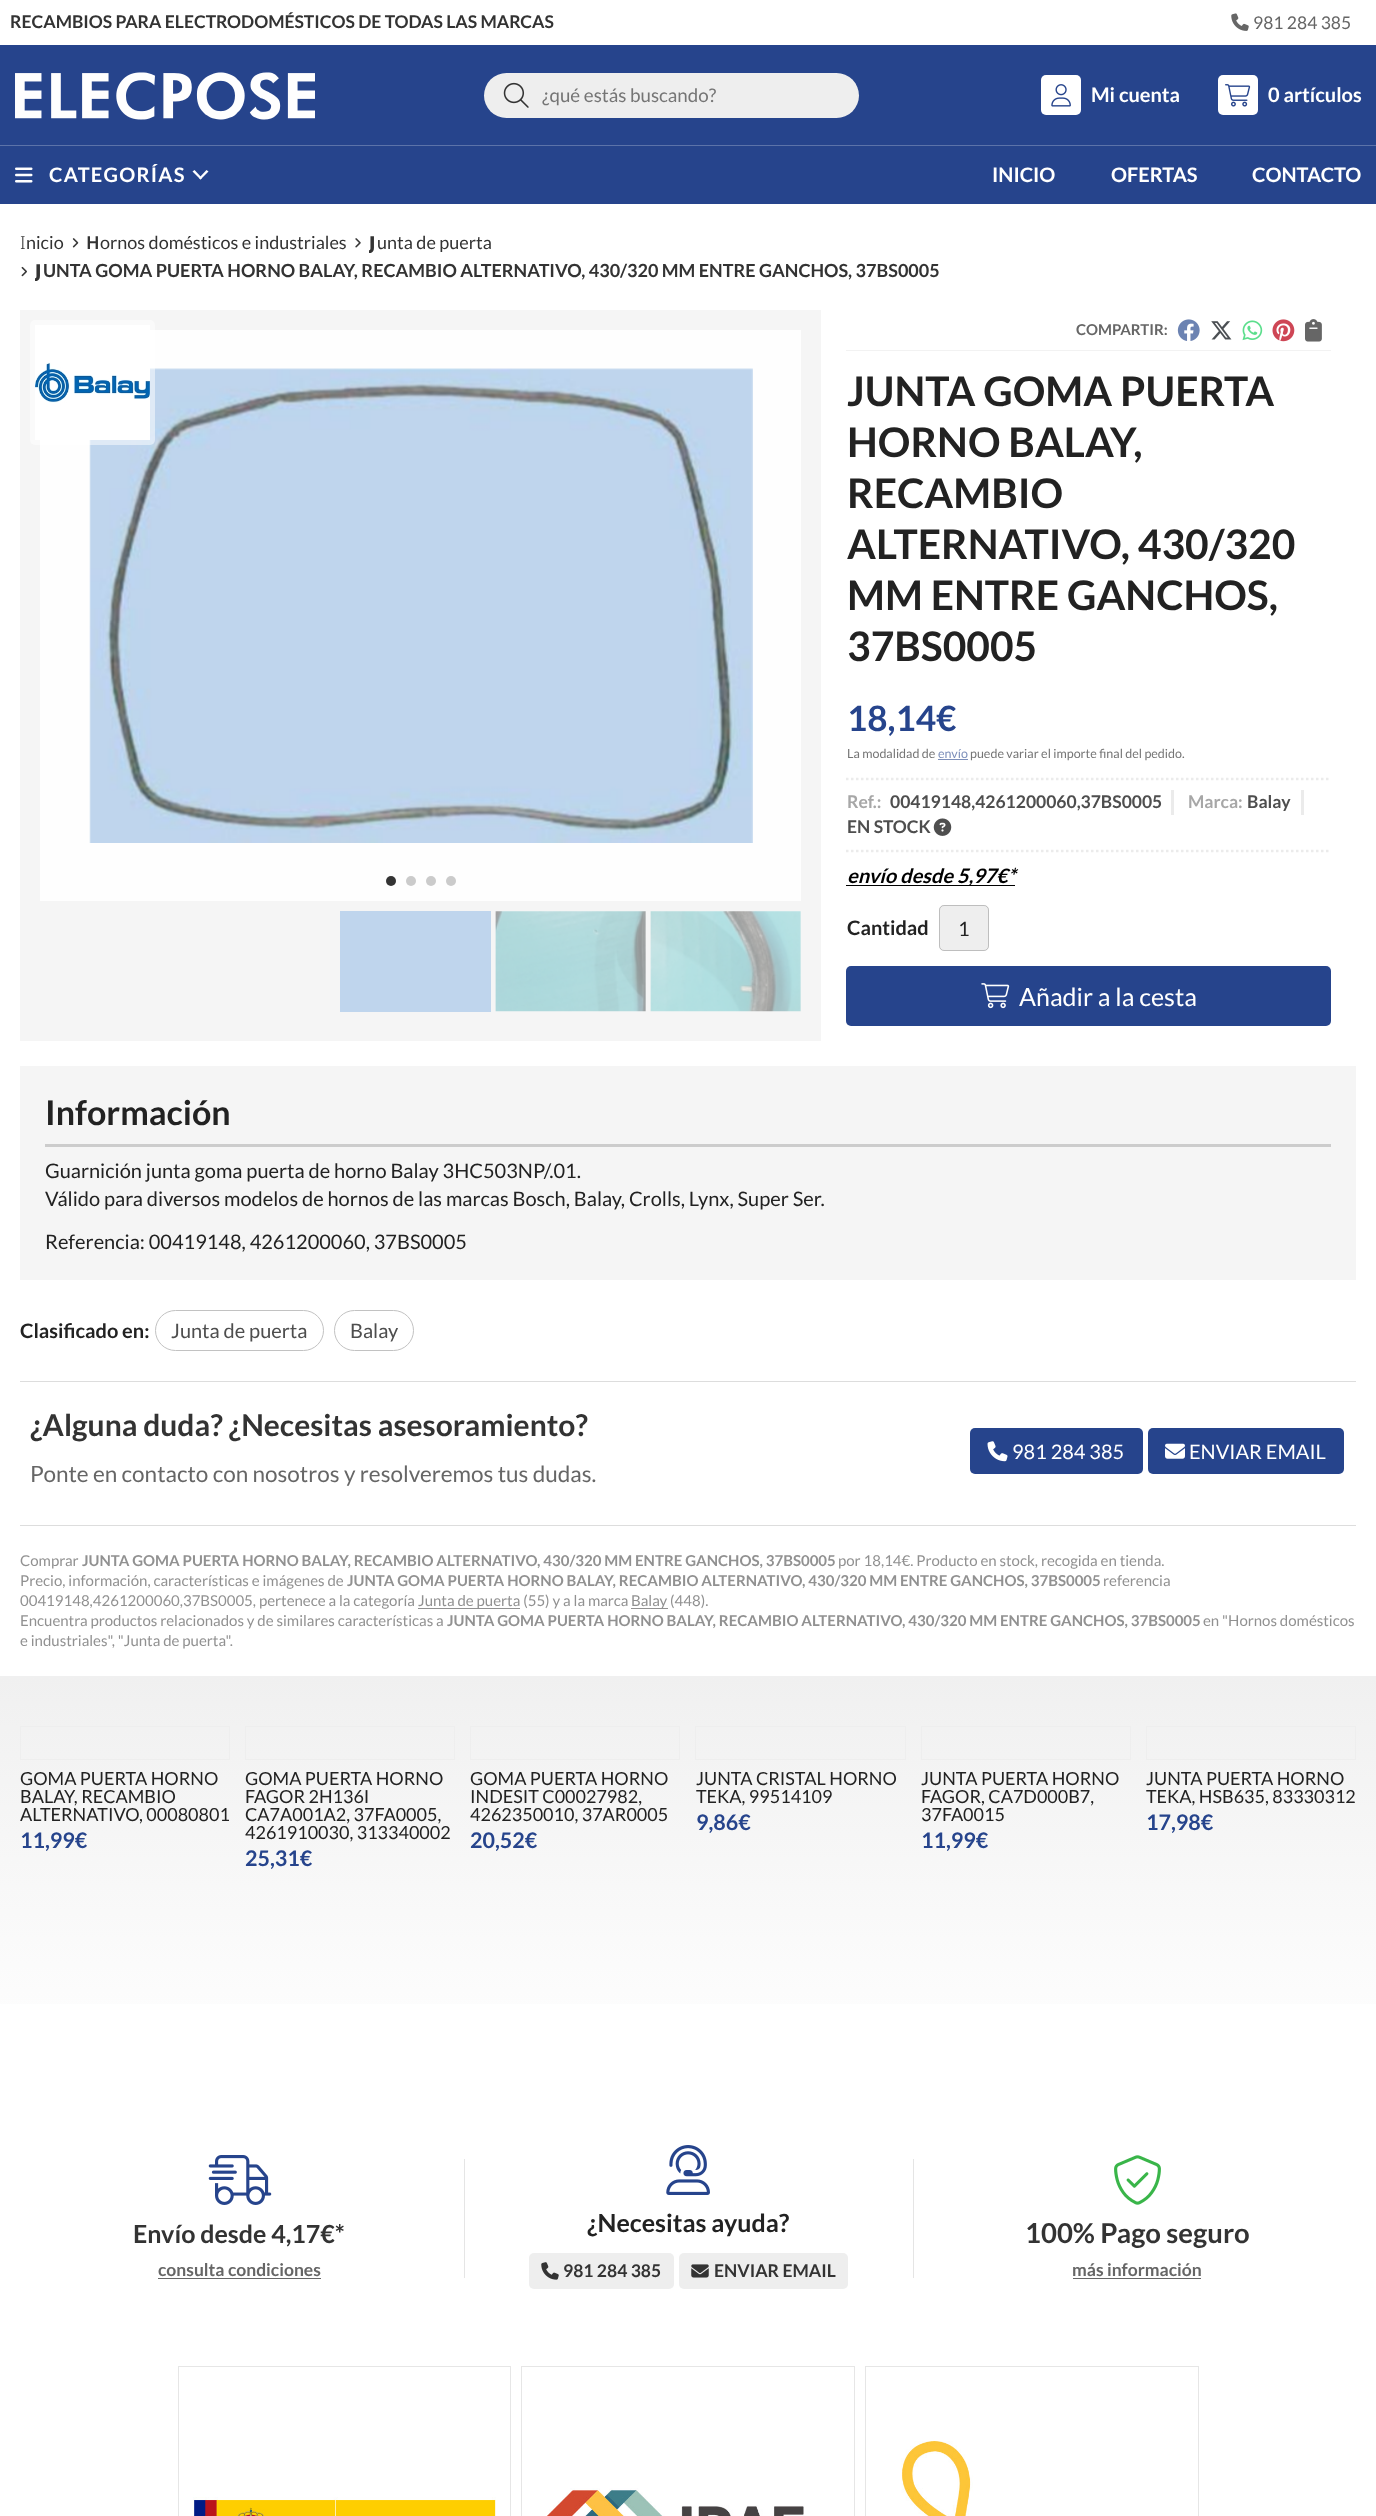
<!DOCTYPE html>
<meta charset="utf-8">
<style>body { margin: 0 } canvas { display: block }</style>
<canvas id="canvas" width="1376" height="2516"></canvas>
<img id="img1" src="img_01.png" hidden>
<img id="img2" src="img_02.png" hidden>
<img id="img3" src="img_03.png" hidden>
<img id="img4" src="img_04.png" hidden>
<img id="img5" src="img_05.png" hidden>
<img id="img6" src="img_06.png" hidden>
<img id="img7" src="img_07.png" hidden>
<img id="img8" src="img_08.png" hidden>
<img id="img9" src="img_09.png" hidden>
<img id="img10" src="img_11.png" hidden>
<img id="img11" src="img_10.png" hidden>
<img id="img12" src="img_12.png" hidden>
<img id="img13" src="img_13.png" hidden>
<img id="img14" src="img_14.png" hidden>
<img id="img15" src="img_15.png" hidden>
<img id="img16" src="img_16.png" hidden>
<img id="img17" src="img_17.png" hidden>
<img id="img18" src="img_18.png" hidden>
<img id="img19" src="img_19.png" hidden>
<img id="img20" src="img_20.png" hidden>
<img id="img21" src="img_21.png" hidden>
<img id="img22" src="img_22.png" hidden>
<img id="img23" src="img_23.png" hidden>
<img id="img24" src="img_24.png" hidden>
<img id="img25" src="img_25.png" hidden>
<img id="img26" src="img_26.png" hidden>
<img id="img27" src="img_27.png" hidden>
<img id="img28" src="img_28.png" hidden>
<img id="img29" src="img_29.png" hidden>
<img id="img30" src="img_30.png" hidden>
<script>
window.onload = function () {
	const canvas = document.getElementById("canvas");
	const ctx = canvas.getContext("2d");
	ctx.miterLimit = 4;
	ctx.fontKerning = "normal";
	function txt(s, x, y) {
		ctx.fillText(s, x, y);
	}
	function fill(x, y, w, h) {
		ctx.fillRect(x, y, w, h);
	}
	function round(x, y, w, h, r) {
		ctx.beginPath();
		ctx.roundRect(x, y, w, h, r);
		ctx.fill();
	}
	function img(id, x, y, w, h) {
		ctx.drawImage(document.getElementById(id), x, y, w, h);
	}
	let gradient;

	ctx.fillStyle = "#FFFFFF";
	fill(0, 0, 1376, 2516);
	img("img1", 1231, 13, 18, 18);
	ctx.fillStyle = "#26448C";
	fill(0, 45, 1376, 100);
	img("img2", 15, 72, 300, 48);
	ctx.fillStyle = "#EEEEEE";
	round(484, 73, 375, 45, 22.5);
	img("img3", 503, 82, 26, 26);
	ctx.fillStyle = "#FFFFFF";
	round(1041, 75, 40, 40, 5);
	img("img4", 1051, 84, 20, 23);
	round(1218, 75, 40, 40, 5);
	img("img5", 1225, 84, 26, 23);
	ctx.fillStyle = "#26448C";
	fill(0, 146, 1376, 58);
	ctx.fillStyle = "#5C73A9";
	fill(0, 145, 1376, 1);
	img("img6", 15, 167, 18, 16);
	ctx.fillStyle = "#FFFFFF";
	ctx.beginPath();
	ctx.moveTo(194.5, 170);
	ctx.lineTo(202, 178);
	ctx.lineTo(200.5, 179.5);
	ctx.lineTo(192.5, 171.5);
	ctx.closePath();
	ctx.fill();
	ctx.beginPath();
	ctx.moveTo(199, 178);
	ctx.lineTo(206.5, 170);
	ctx.lineTo(208.5, 171.5);
	ctx.lineTo(200.5, 179.5);
	ctx.closePath();
	ctx.fill();
	img("img7", 72, 238, 7, 10);
	img("img8", 355, 238, 6, 10);
	img("img9", 21, 266, 6, 11);
	ctx.fillStyle = "#F5F5F5";
	fill(20, 310, 801, 731);
	ctx.fillStyle = "#FEFEFE";
	fill(40, 330, 761, 571);
	img("img10", 89, 368, 664, 475);
	ctx.fillStyle = "rgba(255, 255, 255, 0.5)";
	round(30, 320, 125, 125, 5);
	img("img11", 35, 325, 115, 115);
	ctx.fillStyle = "#333333";
	ctx.beginPath();
	ctx.arc(391, 881, 5, 0, Math.PI * 2);
	ctx.fill();
	ctx.fillStyle = "#CBCBCB";
	ctx.beginPath();
	ctx.arc(411, 881, 5, 0, Math.PI * 2);
	ctx.fill();
	ctx.beginPath();
	ctx.arc(431, 881, 5, 0, Math.PI * 2);
	ctx.fill();
	ctx.beginPath();
	ctx.arc(451, 881, 5, 0, Math.PI * 2);
	ctx.fill();
	ctx.fillStyle = "#BFD5ED";
	fill(340, 911, 151, 101);
	img("img12", 495, 911, 151, 101);
	img("img13", 650, 911, 151, 101);
	ctx.fillStyle = "#F2F2F2";
	fill(846, 350, 485, 1);
	img("img14", 1177, 319, 23, 22);
	img("img15", 1211, 321, 21, 19);
	img("img16", 1242, 320, 21, 21);
	img("img17", 1272, 319, 23, 23);
	img("img18", 1305, 319, 17, 23);
	ctx.fillStyle = "#7D8FBA";
	fill(938, 759, 30, 1);
	ctx.beginPath();
	ctx.moveTo(846, 779);
	ctx.lineTo(1331, 779);
	ctx.strokeStyle = "#EBEBEB";
	ctx.lineWidth = 2.5;
	ctx.setLineDash([2.5, 2.5]);
	ctx.stroke();
	ctx.beginPath();
	ctx.moveTo(846, 851);
	ctx.lineTo(1331, 851);
	ctx.stroke();
	ctx.fillStyle = "#EBEBEB";
	fill(1171, 790, 3, 25);
	fill(1301, 790, 3, 25);
	img("img19", 933, 818, 19, 18);
	ctx.fillStyle = "#000000";
	fill(846, 885, 150, 1);
	fill(996, 885, 19, 1);
	ctx.fillStyle = "#EEEEEE";
	round(939, 905, 50, 46, 5);
	ctx.beginPath();
	ctx.roundRect(939.5, 905.5, 49, 45, 4.5);
	ctx.strokeStyle = "rgba(0, 0, 0, 0.2)";
	ctx.lineWidth = 1;
	ctx.setLineDash([]);
	ctx.stroke();
	ctx.fillStyle = "#26448C";
	round(846, 966, 485, 60, 5);
	img("img20", 981, 983, 29, 26);
	ctx.fillStyle = "#F5F5F5";
	fill(20, 1066, 1336, 214);
	ctx.fillStyle = "#CCCCCC";
	fill(45, 1144, 1286, 3);
	ctx.beginPath();
	ctx.roundRect(155.5, 1310.5, 168, 40, 20);
	ctx.strokeStyle = "#C2C2C2";
	ctx.stroke();
	ctx.beginPath();
	ctx.roundRect(334.5, 1310.5, 79, 40, 20);
	ctx.stroke();
	ctx.fillStyle = "#DDDDDD";
	fill(20, 1381, 1336, 1);
	fill(20, 1525, 1336, 1);
	ctx.fillStyle = "#26448C";
	round(970, 1428, 173, 46, 5);
	img("img21", 987, 1441, 21, 21);
	round(1148, 1428, 196, 46, 5);
	img("img22", 1165, 1443, 20, 16);
	ctx.fillStyle = "#919191";
	fill(418, 1608, 102, 1);
	fill(631, 1608, 37, 1);
	gradient = ctx.createLinearGradient(688, 1676, 688, 2070);
	gradient.addColorStop(0, "#F0F0F0");
	gradient.addColorStop(1, "#FFFFFF");
	ctx.fillStyle = gradient;
	fill(0, 1676, 1376, 328);
	ctx.strokeStyle = "#EEEEEE";
	ctx.strokeRect(20.5, 1726.5, 209, 33);
	ctx.strokeRect(245.5, 1726.5, 209, 33);
	ctx.strokeRect(470.5, 1726.5, 209, 33);
	ctx.strokeRect(695.5, 1726.5, 210, 33);
	ctx.strokeRect(921.5, 1726.5, 209, 33);
	ctx.strokeRect(1146.5, 1726.5, 209, 33);
	img("img23", 208, 2155, 64, 50);
	ctx.fillStyle = "#666666";
	fill(158, 2278, 163, 1);
	ctx.fillStyle = "#E5E5E5";
	fill(464, 2159, 1, 119);
	img("img24", 666, 2145, 44, 50);
	ctx.fillStyle = "#EEEEEE";
	round(529, 2253, 145, 36, 5);
	img("img25", 541, 2262, 18, 18);
	round(679, 2253, 169, 36, 5);
	img("img26", 691, 2264, 18, 14);
	ctx.fillStyle = "#E5E5E5";
	fill(913, 2159, 1, 119);
	img("img27", 1114, 2155, 47, 50);
	ctx.fillStyle = "#666666";
	fill(1073, 2278, 128, 1);
	ctx.strokeStyle = "#E6E6E6";
	ctx.strokeRect(178.5, 2366.5, 332, 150);
	img("img28", 193, 2497, 303, 19);
	ctx.strokeRect(521.5, 2366.5, 333, 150);
	img("img29", 547, 2488, 257, 28);
	ctx.strokeRect(865.5, 2366.5, 333, 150);
	img("img30", 901, 2441, 72, 75);
	ctx.font = "bold 17.5px Lato";
	ctx.fillStyle = "#333333";
	txt("RECAMBIOS PARA ELECTRODOMÉSTICOS DE TODAS LAS MARCAS", 10, 28);
	ctx.font = "17.5px Lato";
	ctx.fillStyle = "#666666";
	txt("981 284 385", 1253, 29);
	ctx.font = "18.75px Lato";
	ctx.fillStyle = "#757575";
	txt("¿qué estás buscando?", 542, 102);
	ctx.font = "bold 20px Lato";
	ctx.fillStyle = "#FFFFFF";
	txt("Mi cuenta", 1091, 102);
	txt("0 artículos", 1268, 102);
	ctx.letterSpacing = "1.25px";
	txt("CATEGORÍAS", 49, 182);
	ctx.letterSpacing = "0px";
	txt("INICIO", 992, 182);
	txt("OFERTAS", 1111, 182);
	txt("CONTACTO", 1252, 182);
	ctx.font = "300 18px Noto Sans";
	ctx.fillStyle = "#333333";
	txt("I", 20, 249);
	ctx.font = "18px Lato";
	txt("nicio", 26, 249);
	ctx.font = "600 18px Noto Sans";
	txt("H", 86, 249);
	ctx.font = "18px Lato";
	txt("ornos domésticos e industriales", 100, 249);
	ctx.save();
	ctx.beginPath();
	ctx.rect(369, 229, 122, 27);
	ctx.clip();
	ctx.font = "900 18px Noto Sans";
	txt("J", 369, 249);
	ctx.restore();
	txt("unta de puerta", 377, 249);
	ctx.save();
	ctx.beginPath();
	ctx.rect(35, 256, 904, 29);
	ctx.clip();
	ctx.font = "900 18px Noto Sans";
	txt("J", 35, 277);
	ctx.restore();
	ctx.font = "bold 18px Lato";
	txt("UNTA GOMA PUERTA HORNO BALAY, RECAMBIO ALTERNATIVO, 430/320 MM ENTRE GANCHOS, 37BS0005", 43, 277);
	ctx.font = "bold 15px Lato";
	ctx.fillStyle = "#666666";
	txt("COMPARTIR:", 1076, 335);
	ctx.font = "bold 40.75px Lato";
	ctx.fillStyle = "#222222";
	txt("JUNTA GOMA PUERTA", 847, 406);
	txt("HORNO BALAY,", 847, 457);
	txt("RECAMBIO", 847, 508);
	txt("ALTERNATIVO, 430/320", 847, 559);
	txt("MM ENTRE GANCHOS,", 847, 610);
	txt("37BS0005", 847, 661);
	ctx.font = "bold 35px Lato";
	ctx.fillStyle = "#26448C";
	txt("18,14€", 847, 731);
	ctx.font = "12.5px Lato";
	ctx.fillStyle = "#757575";
	txt("La modalidad de", 847, 758);
	ctx.fillStyle = "#7D8FBA";
	txt("envío", 938, 758);
	ctx.fillStyle = "#757575";
	txt("puede variar el importe final del pedido.", 970, 758);
	ctx.font = "bold 17.5px Lato";
	ctx.fillStyle = "#A7A7A7";
	txt("Ref.:", 847, 808);
	ctx.fillStyle = "#4E4E4E";
	txt("00419148,4261200060,37BS0005", 890, 808);
	ctx.fillStyle = "#A7A7A7";
	txt("Marca:", 1188, 808);
	ctx.fillStyle = "#4E4E4E";
	txt("Balay", 1247, 808);
	txt("EN STOCK", 847, 833);
	ctx.font = "italic bold 20px Lato";
	ctx.fillStyle = "#000000";
	txt("envío desde 5,97€*", 847, 883);
	ctx.font = "bold 20px Lato";
	ctx.fillStyle = "#222222";
	txt("Cantidad", 847, 935);
	ctx.font = "20px Lato";
	txt("1", 958, 936);
	ctx.font = "25px Lato";
	ctx.fillStyle = "#FFFFFF";
	txt("Añadir a la cesta", 1019, 1006);
	ctx.font = "bold 34px Lato";
	ctx.fillStyle = "#222222";
	txt("Información", 45, 1125);
	ctx.font = "20px Lato";
	txt("Guarnición junta goma puerta de horno Balay 3HC503NP/.01.", 45, 1178);
	txt("Válido para diversos modelos de hornos de las marcas Bosch, Balay, Crolls, Lynx, Super Ser.", 45, 1206);
	txt("Referencia: 00419148, 4261200060, 37BS0005", 45, 1249);
	ctx.font = "bold 20px Lato";
	txt("Clasificado en:", 20, 1338);
	ctx.font = "20px Lato";
	ctx.fillStyle = "#4E4E4E";
	txt("Junta de puerta", 171, 1338);
	txt("Balay", 350, 1338);
	ctx.font = "bold 30px Lato";
	ctx.fillStyle = "#333333";
	txt("¿Alguna duda? ¿Necesitas asesoramiento?", 30, 1436);
	ctx.font = "22.5px Lato";
	ctx.fillStyle = "#666666";
	txt("Ponte en contacto con nosotros y resolveremos tus dudas.", 30, 1482);
	ctx.font = "20px Lato";
	ctx.fillStyle = "#FFFFFF";
	txt("981 284 385", 1012, 1459);
	txt("ENVIAR EMAIL", 1189, 1459);
	ctx.font = "15px Lato";
	ctx.fillStyle = "#919191";
	txt("Comprar", 20, 1566);
	ctx.font = "bold 15px Lato";
	txt("JUNTA GOMA PUERTA HORNO BALAY, RECAMBIO ALTERNATIVO, 430/320 MM ENTRE GANCHOS, 37BS0005", 82, 1566);
	ctx.font = "15px Lato";
	txt("por 18,14€. Producto en stock, recogida en tienda.", 838, 1566);
	txt("Precio, información, características e imágenes de", 20, 1586);
	ctx.font = "bold 15px Lato";
	txt("JUNTA GOMA PUERTA HORNO BALAY, RECAMBIO ALTERNATIVO, 430/320 MM ENTRE GANCHOS, 37BS0005", 347, 1586);
	ctx.font = "15px Lato";
	txt("referencia", 1103, 1586);
	txt("00419148,4261200060,37BS0005, pertenece a la categoría", 20, 1606);
	txt("Junta de puerta (55) y a la marca", 418, 1606);
	txt("Balay (448).", 631, 1606);
	txt("Encuentra productos relacionados y de similares características a", 20, 1626);
	ctx.font = "bold 15px Lato";
	txt("JUNTA GOMA PUERTA HORNO BALAY, RECAMBIO ALTERNATIVO, 430/320 MM ENTRE GANCHOS, 37BS0005", 447, 1626);
	ctx.font = "15px Lato";
	txt("en \"Hornos domésticos", 1203, 1626);
	txt("e industriales\", \"Junta de puerta\".", 20, 1646);
	ctx.font = "18px Lato";
	ctx.fillStyle = "#222222";
	txt("GOMA PUERTA HORNO", 20, 1785);
	txt("BALAY, RECAMBIO", 20, 1803);
	txt("ALTERNATIVO, 00080801", 20, 1821);
	ctx.font = "bold 21.5px Lato";
	ctx.fillStyle = "#26448C";
	txt("11,99€", 20, 1848);
	ctx.font = "18px Lato";
	ctx.fillStyle = "#222222";
	txt("GOMA PUERTA HORNO", 245, 1785);
	txt("FAGOR 2H136I", 245, 1803);
	txt("CA7A001A2, 37FA0005,", 245, 1821);
	txt("4261910030, 313340002", 245, 1839);
	ctx.font = "bold 21.5px Lato";
	ctx.fillStyle = "#26448C";
	txt("25,31€", 245, 1866);
	ctx.font = "18px Lato";
	ctx.fillStyle = "#222222";
	txt("GOMA PUERTA HORNO", 470, 1785);
	txt("INDESIT C00027982,", 470, 1803);
	txt("4262350010, 37AR0005", 470, 1821);
	ctx.font = "bold 21.5px Lato";
	ctx.fillStyle = "#26448C";
	txt("20,52€", 470, 1848);
	ctx.font = "18px Lato";
	ctx.fillStyle = "#222222";
	txt("JUNTA CRISTAL HORNO", 696, 1785);
	txt("TEKA, 99514109", 696, 1803);
	ctx.font = "bold 21.5px Lato";
	ctx.fillStyle = "#26448C";
	txt("9,86€", 696, 1830);
	ctx.font = "18px Lato";
	ctx.fillStyle = "#222222";
	txt("JUNTA PUERTA HORNO", 921, 1785);
	txt("FAGOR, CA7D000B7,", 921, 1803);
	txt("37FA0015", 921, 1821);
	ctx.font = "bold 21.5px Lato";
	ctx.fillStyle = "#26448C";
	txt("11,99€", 921, 1848);
	ctx.font = "18px Lato";
	ctx.fillStyle = "#222222";
	txt("JUNTA PUERTA HORNO", 1146, 1785);
	txt("TEKA, HSB635, 83330312", 1146, 1803);
	ctx.font = "bold 21.5px Lato";
	ctx.fillStyle = "#26448C";
	txt("17,98€", 1146, 1830);
	ctx.font = "bold 25px Lato";
	ctx.fillStyle = "#333333";
	txt("Envío desde 4,17€*", 133, 2243);
	ctx.font = "bold 17.5px Lato";
	ctx.fillStyle = "#666666";
	txt("consulta condiciones", 158, 2276);
	ctx.font = "bold 25px Lato";
	ctx.fillStyle = "#222222";
	txt("¿Necesitas ayuda?", 587, 2232);
	ctx.font = "bold 17.5px Lato";
	ctx.fillStyle = "#333333";
	txt("981 284 385", 563, 2277);
	txt("ENVIAR EMAIL", 714, 2277);
	ctx.font = "bold 27.5px Lato";
	txt("100% Pago seguro", 1025, 2243);
	ctx.font = "bold 17.5px Lato";
	ctx.fillStyle = "#666666";
	txt("más información", 1072, 2276);
};
</script>
